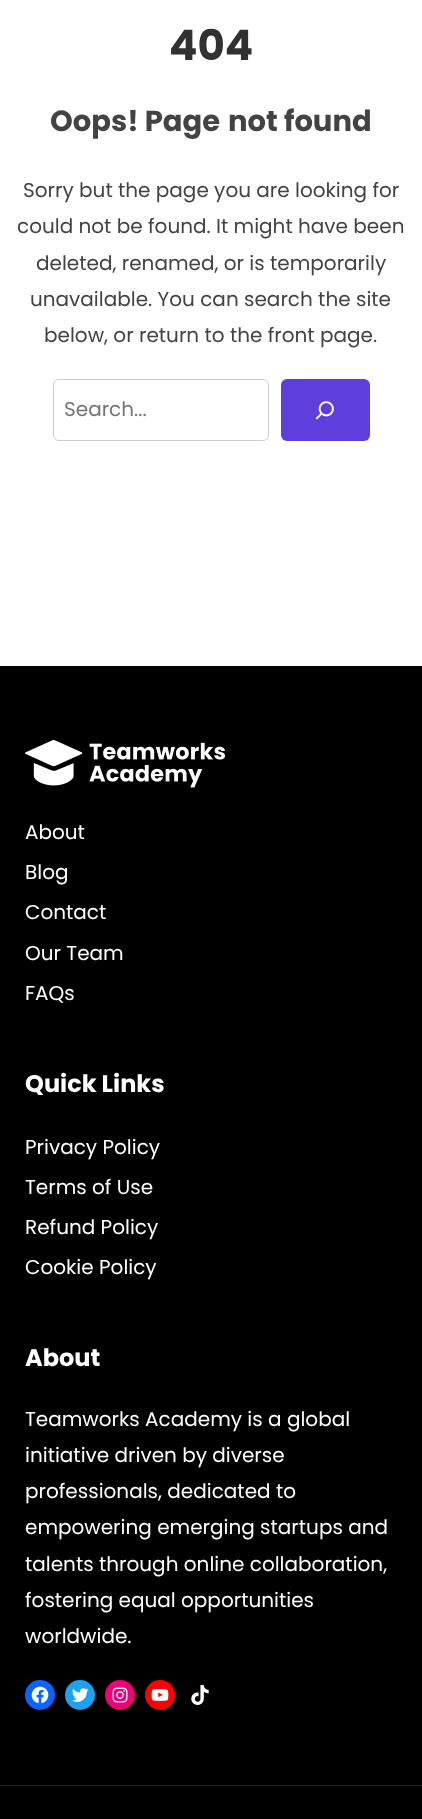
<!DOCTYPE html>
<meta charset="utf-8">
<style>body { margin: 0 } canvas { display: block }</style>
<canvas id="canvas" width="422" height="1819"></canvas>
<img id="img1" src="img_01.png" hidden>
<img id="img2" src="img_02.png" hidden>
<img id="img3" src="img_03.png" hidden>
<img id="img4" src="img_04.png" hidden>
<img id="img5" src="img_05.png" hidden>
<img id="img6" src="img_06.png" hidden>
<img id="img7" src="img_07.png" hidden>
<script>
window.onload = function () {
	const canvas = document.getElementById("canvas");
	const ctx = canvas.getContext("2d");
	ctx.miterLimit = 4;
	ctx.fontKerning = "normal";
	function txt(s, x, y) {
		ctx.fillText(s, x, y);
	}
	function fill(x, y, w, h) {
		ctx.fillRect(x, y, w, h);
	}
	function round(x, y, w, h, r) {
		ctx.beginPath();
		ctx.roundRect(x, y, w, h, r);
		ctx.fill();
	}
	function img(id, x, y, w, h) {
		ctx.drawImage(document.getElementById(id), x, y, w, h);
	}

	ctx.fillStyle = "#FFFFFF";
	fill(0, 0, 422, 1819);
	ctx.beginPath();
	ctx.roundRect(53.5, 379.5, 215, 61, 5.5);
	ctx.strokeStyle = "#CCCCCC";
	ctx.stroke();
	ctx.fillStyle = "#5E3FDE";
	round(281, 379, 89, 62, 6);
	img("img1", 315, 401, 19, 19);
	ctx.fillStyle = "#000000";
	fill(0, 666, 422, 1119);
	img("img2", 25, 740, 200, 48);
	ctx.fillStyle = "#0866FF";
	ctx.beginPath();
	ctx.arc(40, 1695, 15, 0, Math.PI * 2);
	ctx.fill();
	img("img3", 31, 1686, 18, 18);
	ctx.fillStyle = "#1DA1F2";
	ctx.beginPath();
	ctx.arc(80, 1695, 15, 0, Math.PI * 2);
	ctx.fill();
	img("img4", 72, 1688, 17, 14);
	ctx.fillStyle = "#F00075";
	ctx.beginPath();
	ctx.arc(120, 1695, 15, 0, Math.PI * 2);
	ctx.fill();
	img("img5", 112, 1687, 16, 16);
	ctx.fillStyle = "#FF0000";
	ctx.beginPath();
	ctx.arc(160, 1695, 15, 0, Math.PI * 2);
	ctx.fill();
	img("img6", 151, 1689, 18, 12);
	img("img7", 191, 1685, 18, 20);
	ctx.fillStyle = "#000000";
	fill(0, 1786, 422, 33);
	ctx.fillStyle = "#212121";
	fill(0, 1785, 422, 1);
	ctx.font = "bold 42px Poppins";
	ctx.fillStyle = "#313131";
	txt("404", 169, 60);
	ctx.font = "bold 29px Poppins";
	ctx.fillStyle = "#434343";
	txt("Oops! Page", 50, 131);
	txt("not found", 228, 131);
	ctx.font = "20px Poppins";
	txt("Sorry but the page you are looking for", 23, 197);
	txt("could not be found. It might have been", 17, 233);
	txt("deleted, renamed, or is temporarily", 36, 270);
	txt("unavailable. You can search the site", 30, 306);
	txt("below, or return to the front page.", 44, 342);
	ctx.fillStyle = "#757575";
	txt("Search...", 64, 416);
	ctx.fillStyle = "#FFFFFF";
	txt("About", 25, 839);
	txt("Blog", 25, 879);
	txt("Contact", 25, 919);
	txt("Our Team", 25, 960);
	txt("FAQs", 25, 1000);
	ctx.font = "bold 24px Poppins";
	txt("Quick Links", 25, 1092);
	ctx.font = "20px Poppins";
	txt("Privacy Policy", 25, 1154);
	txt("Terms of Use", 25, 1194);
	txt("Refund Policy", 25, 1234);
	txt("Cookie Policy", 25, 1274);
	ctx.font = "bold 24px Poppins";
	txt("About", 25, 1366);
	ctx.font = "20px Poppins";
	txt("Teamworks Academy is a global", 25, 1426);
	txt("initiative driven by diverse", 25, 1462);
	txt("professionals, dedicated to", 25, 1498);
	txt("empowering emerging startups and", 25, 1534);
	txt("talents through online collaboration,", 25, 1571);
	txt("fostering equal opportunities", 25, 1607);
	txt("worldwide.", 25, 1643);
};
</script>
